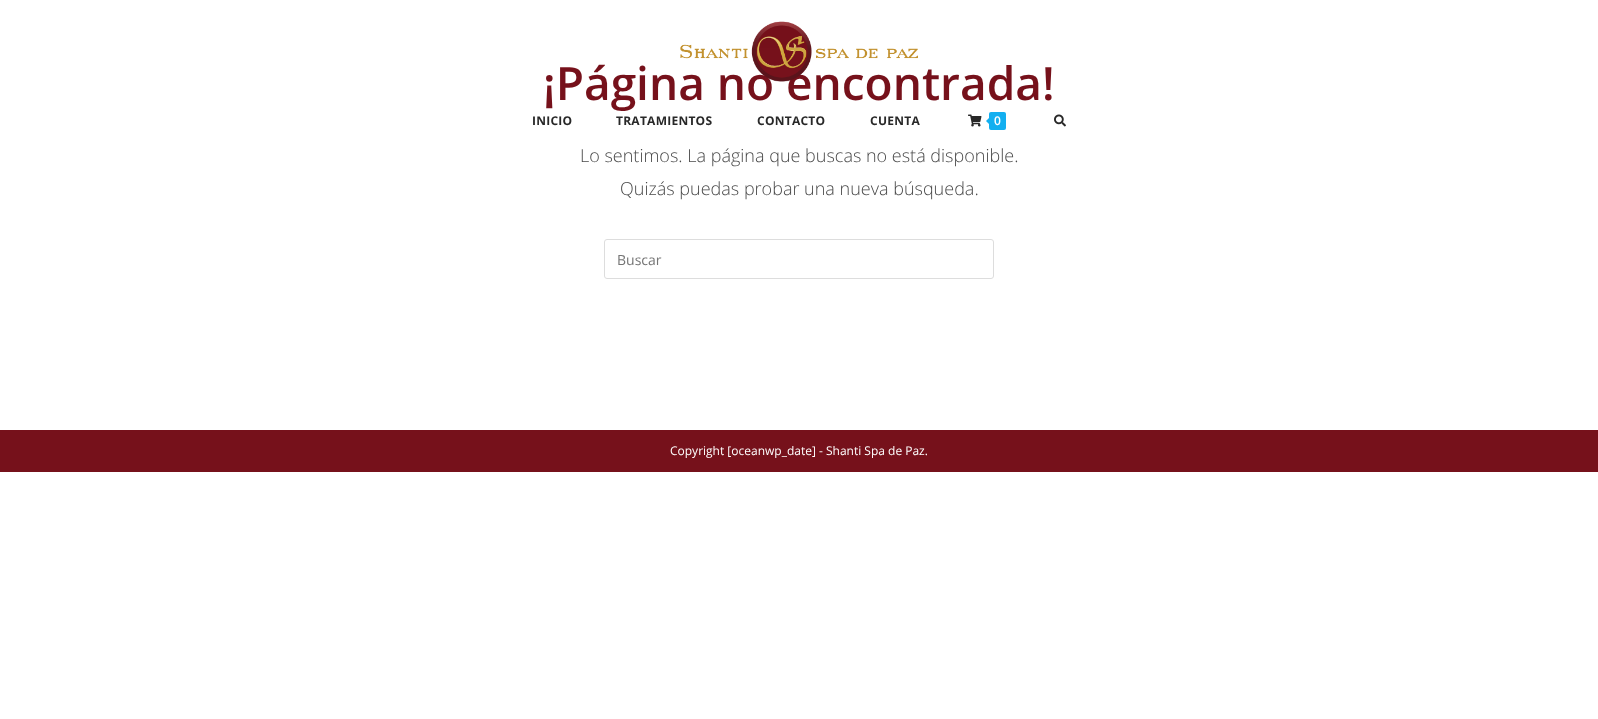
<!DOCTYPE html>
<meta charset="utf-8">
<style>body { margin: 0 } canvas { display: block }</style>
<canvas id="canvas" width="1598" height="719"></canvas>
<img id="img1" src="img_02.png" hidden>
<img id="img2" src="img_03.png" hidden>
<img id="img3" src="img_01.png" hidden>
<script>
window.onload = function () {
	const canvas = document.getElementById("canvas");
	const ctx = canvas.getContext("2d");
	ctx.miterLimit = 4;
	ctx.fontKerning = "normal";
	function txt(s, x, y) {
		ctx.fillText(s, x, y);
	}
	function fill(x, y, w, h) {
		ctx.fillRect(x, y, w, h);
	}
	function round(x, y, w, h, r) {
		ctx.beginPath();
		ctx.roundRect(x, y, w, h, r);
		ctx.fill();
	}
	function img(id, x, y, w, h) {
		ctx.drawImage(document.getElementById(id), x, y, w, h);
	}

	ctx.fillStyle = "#FFFFFF";
	fill(0, 0, 1598, 719);
	ctx.beginPath();
	ctx.roundRect(604.5, 239.5, 389, 39, 2.5);
	ctx.strokeStyle = "#DDDDDD";
	ctx.stroke();
	img("img1", 968, 114, 14, 13);
	ctx.fillStyle = "#13AFF0";
	round(989, 112, 17, 18, 2);
	ctx.beginPath();
	ctx.moveTo(991, 116);
	ctx.lineTo(991, 126);
	ctx.lineTo(986, 121);
	ctx.closePath();
	ctx.fill();
	img("img2", 1054, 114, 12, 13);
	ctx.fillStyle = "#76111B";
	fill(0, 430, 1598, 42);
	ctx.font = "600 46px Open Sans";
	txt("¡Página no encontrada!", 543, 100);
	ctx.font = "300 18px Open Sans";
	ctx.fillStyle = "#4A4A4A";
	txt("Lo sentimos. La página que buscas no está disponible.", 580, 162);
	txt("Quizás puedas probar una nueva búsqueda.", 620, 195);
	ctx.font = "14px Open Sans";
	ctx.fillStyle = "#757575";
	txt("Buscar", 617, 265);
	img("img3", 680, 21, 238, 61);
	ctx.letterSpacing = "0.25px";
	ctx.font = "bold 12px Open Sans";
	ctx.fillStyle = "#282828";
	txt("INICIO", 532, 125);
	txt("TRATAMIENTOS", 616, 125);
	txt("CONTACTO", 757, 125);
	txt("CUENTA", 870, 125);
	ctx.font = "600 12px Open Sans";
	ctx.fillStyle = "#FFFFFF";
	txt("0", 994, 125);
	ctx.letterSpacing = "0px";
	ctx.font = "12px Open Sans";
	txt("Copyright [oceanwp_date] - Shanti Spa de Paz.", 670, 455);
};
</script>
